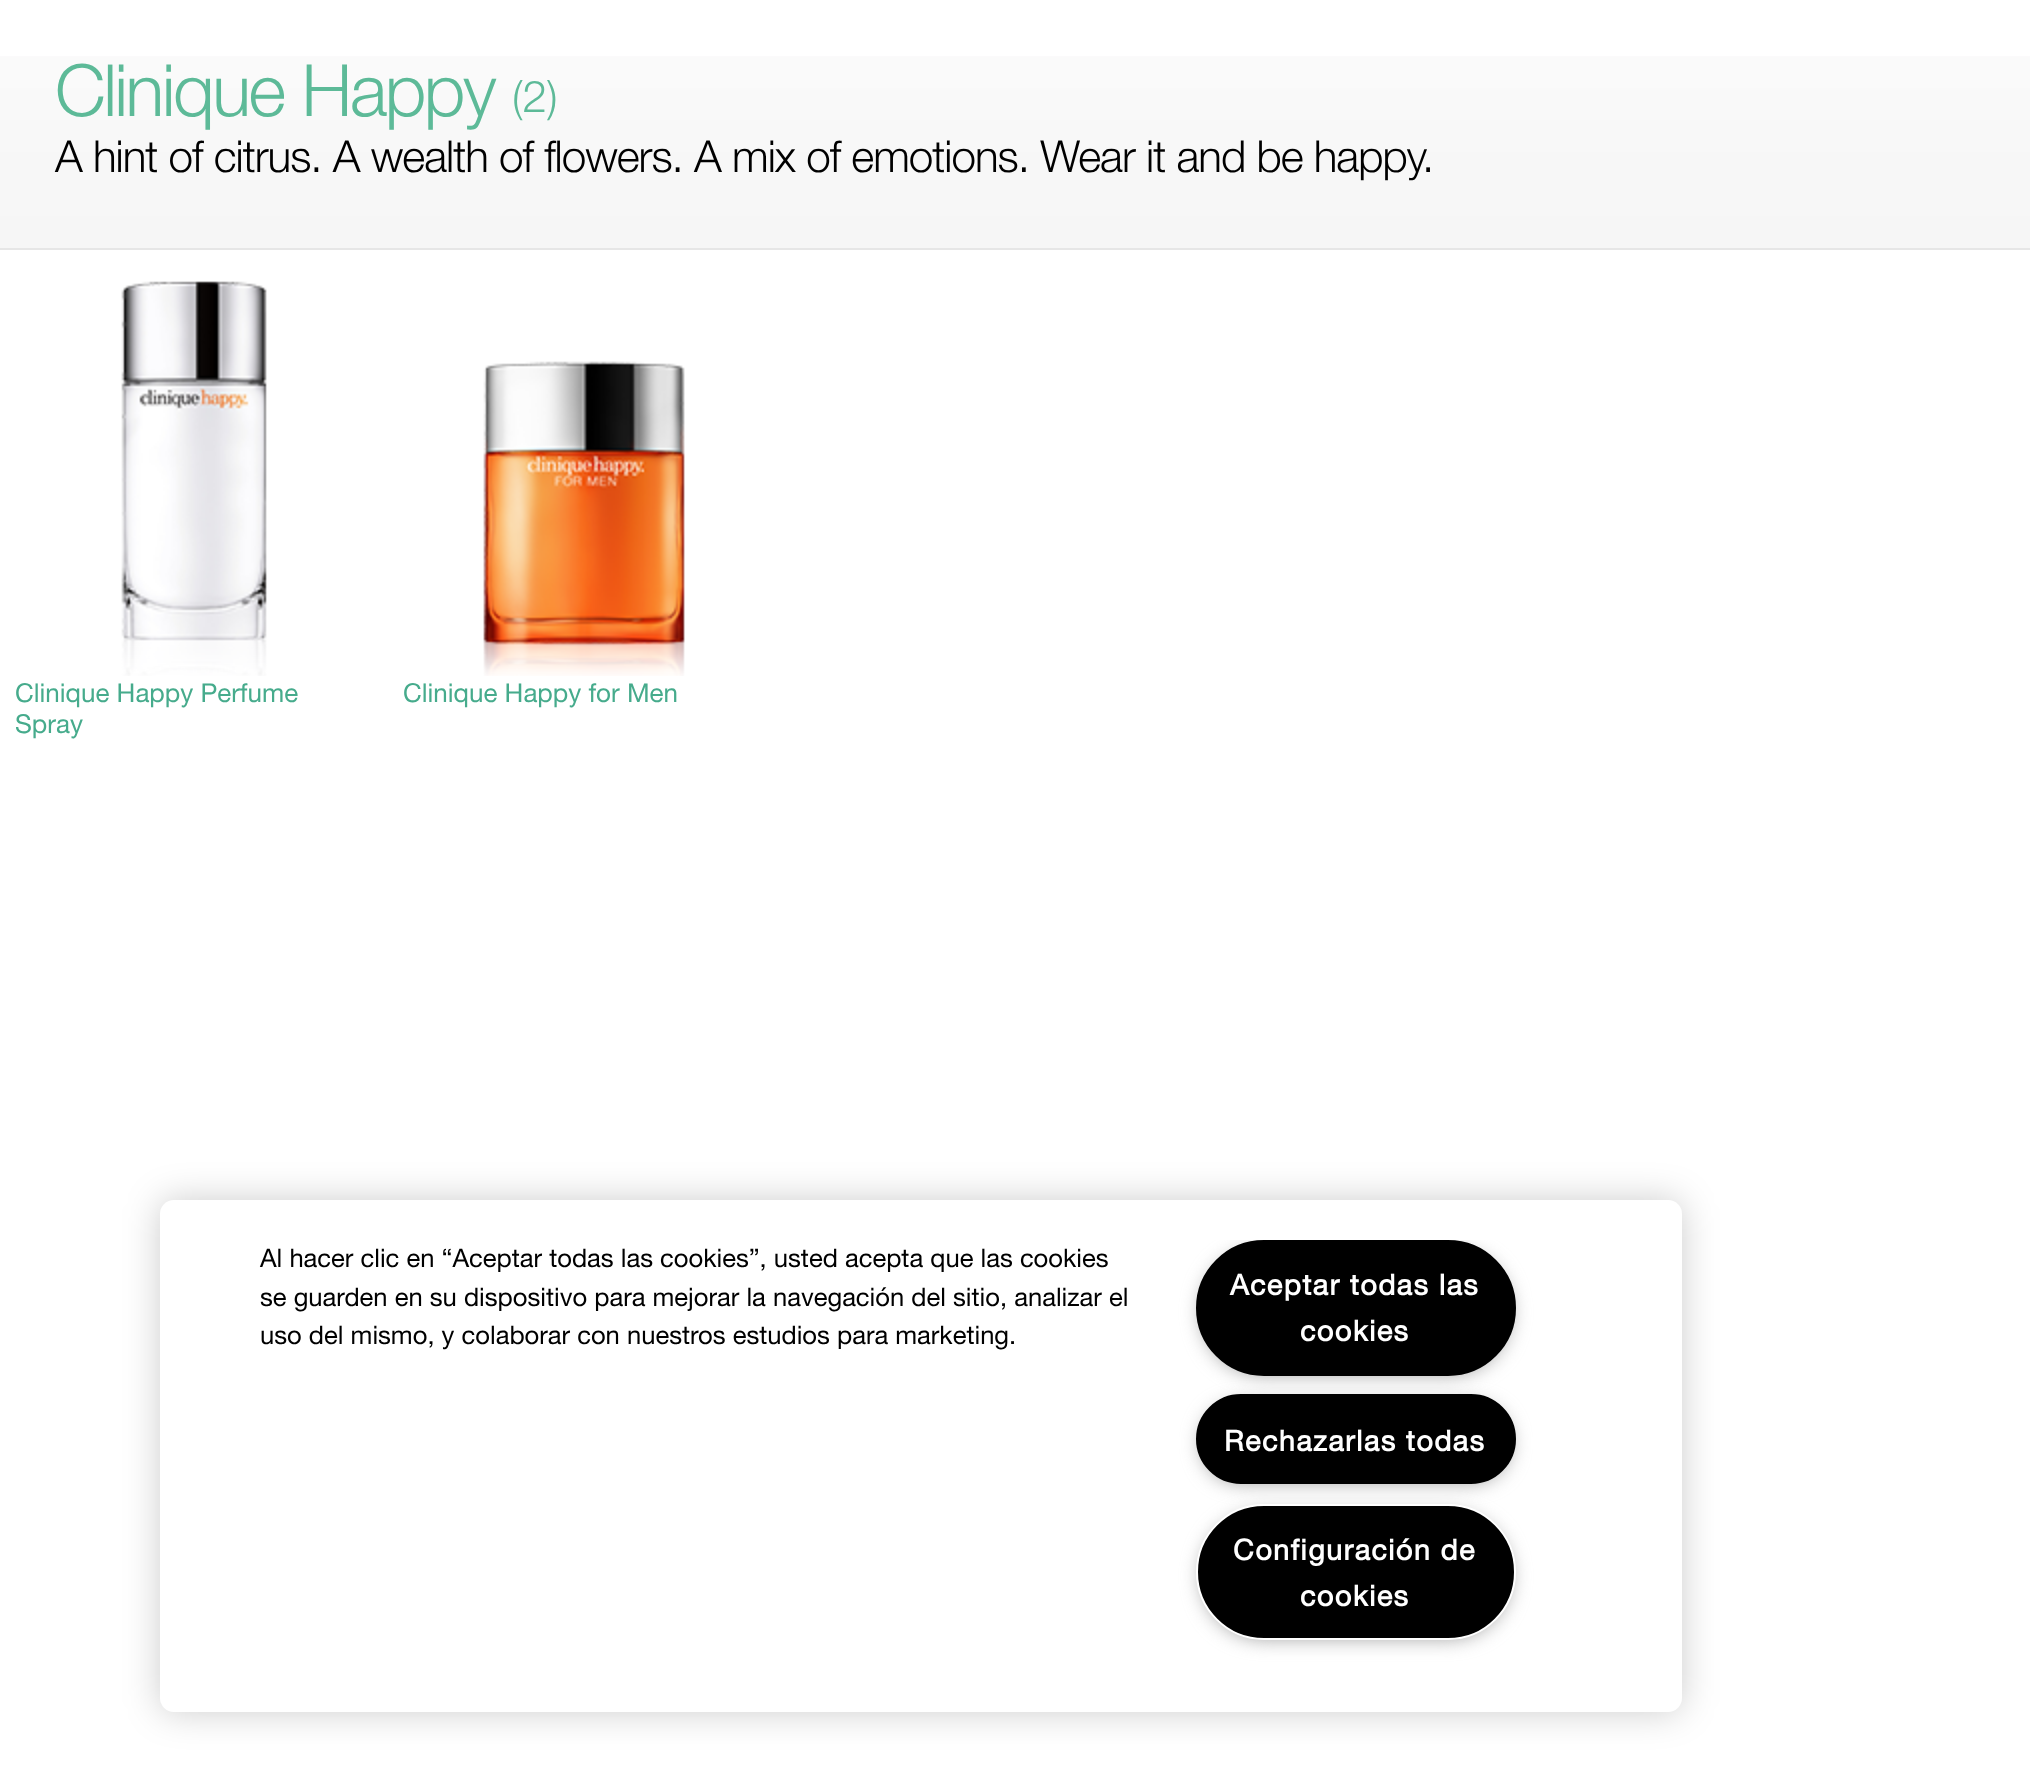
<!DOCTYPE html>
<meta charset="utf-8">
<style>body { margin: 0 } canvas { display: block }</style>
<canvas id="canvas" width="2030" height="1776"></canvas>
<img id="img1" src="img_01.png" hidden>
<img id="img2" src="img_02.png" hidden>
<img id="img3" src="img_03.png" hidden>
<script>
window.onload = function () {
	const canvas = document.getElementById("canvas");
	const ctx = canvas.getContext("2d");
	ctx.miterLimit = 4;
	ctx.fontKerning = "normal";
	function txt(s, x, y) {
		ctx.fillText(s, x, y);
	}
	function fill(x, y, w, h) {
		ctx.fillRect(x, y, w, h);
	}
	function round(x, y, w, h, r) {
		ctx.beginPath();
		ctx.roundRect(x, y, w, h, r);
		ctx.fill();
	}
	function img(id, x, y, w, h) {
		ctx.drawImage(document.getElementById(id), x, y, w, h);
	}

	ctx.fillStyle = "#FFFFFF";
	fill(0, 0, 2030, 1776);
	img("img1", 0, 56, 2030, 192);
	ctx.fillStyle = "#E6E6E6";
	fill(0, 248, 2030, 2);
	img("img2", 121, 281, 146, 395);
	img("img3", 483, 361, 202, 315);
	ctx.fillStyle = "rgba(0, 0, 0, 0.2)";
	ctx.filter = "blur(18px)";
	ctx.beginPath();
	ctx.roundRect(160, 1200, 1522, 512, 14);
	ctx.fill();
	ctx.filter = "none";
	ctx.fillStyle = "#FFFFFF";
	round(160, 1200, 1522, 512, 14);
	ctx.save();
	ctx.beginPath();
	ctx.rect(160, 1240, 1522, 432);
	ctx.clip();
	ctx.fillStyle = "#999999";
	ctx.filter = "blur(10px)";
	ctx.beginPath();
	ctx.roundRect(1202, 1250, 308, 124, 62);
	ctx.fill();
	ctx.filter = "none";
	ctx.restore();
	ctx.fillStyle = "#000000";
	ctx.beginPath();
	ctx.roundRect(1197, 1241, 318, 134, 67);
	ctx.fill();
	ctx.strokeStyle = "#000000";
	ctx.lineWidth = 2;
	ctx.stroke();
	ctx.fillStyle = "#999999";
	ctx.filter = "blur(10px)";
	ctx.beginPath();
	ctx.roundRect(1202, 1404, 308, 78, 39);
	ctx.fill();
	ctx.filter = "none";
	ctx.fillStyle = "#000000";
	ctx.beginPath();
	ctx.roundRect(1197, 1395, 318, 88, 44);
	ctx.fill();
	ctx.stroke();
	ctx.fillStyle = "#999999";
	ctx.filter = "blur(10px)";
	ctx.beginPath();
	ctx.roundRect(1202, 1514, 308, 124, 62);
	ctx.fill();
	ctx.filter = "none";
	ctx.fillStyle = "#000000";
	ctx.beginPath();
	ctx.roundRect(1197, 1505, 318, 134, 67);
	ctx.fill();
	ctx.strokeStyle = "#FFFFFF";
	ctx.stroke();
	ctx.letterSpacing = "-2.25px";
	ctx.font = "300 72px Helvetica Neue";
	ctx.fillStyle = "#5DBA98";
	txt("Clinique Happy", 55, 116);
	ctx.letterSpacing = "0px";
	ctx.font = "300 44px Helvetica Neue";
	txt("(2)", 512, 112);
	ctx.letterSpacing = "-1px";
	ctx.fillStyle = "#000000";
	txt("A hint of citrus. A wealth of flowers. A mix of emotions. Wear it and be happy.", 55, 172);
	ctx.letterSpacing = "0px";
	ctx.font = "26px 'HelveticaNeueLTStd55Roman'";
	ctx.fillStyle = "#46AB8C";
	txt("Clinique Happy Perfume", 15, 702);
	txt("Spray", 15, 733);
	txt("Clinique Happy for Men", 403, 702);
	ctx.font = "25.6px 'HelveticaNeueLTStd55Roman'";
	ctx.fillStyle = "#000000";
	txt("Al hacer clic en “Aceptar todas las cookies”, usted acepta que las cookies", 260, 1267);
	txt("se guarden en su dispositivo para mejorar la navegación del sitio, analizar el", 260, 1306);
	txt("uso del mismo, y colaborar con nuestros estudios para marketing.", 260, 1344);
	ctx.letterSpacing = "1.4px";
	ctx.font = "bold 28.75px 'HelveticaNeueLTStd55Roman'";
	ctx.fillStyle = "#FFFFFF";
	txt("Aceptar todas las", 1230, 1295);
	txt("cookies", 1300, 1341);
	txt("Rechazarlas todas", 1224, 1451);
	txt("Configuración de", 1233, 1560);
	txt("cookies", 1300, 1606);
};
</script>
